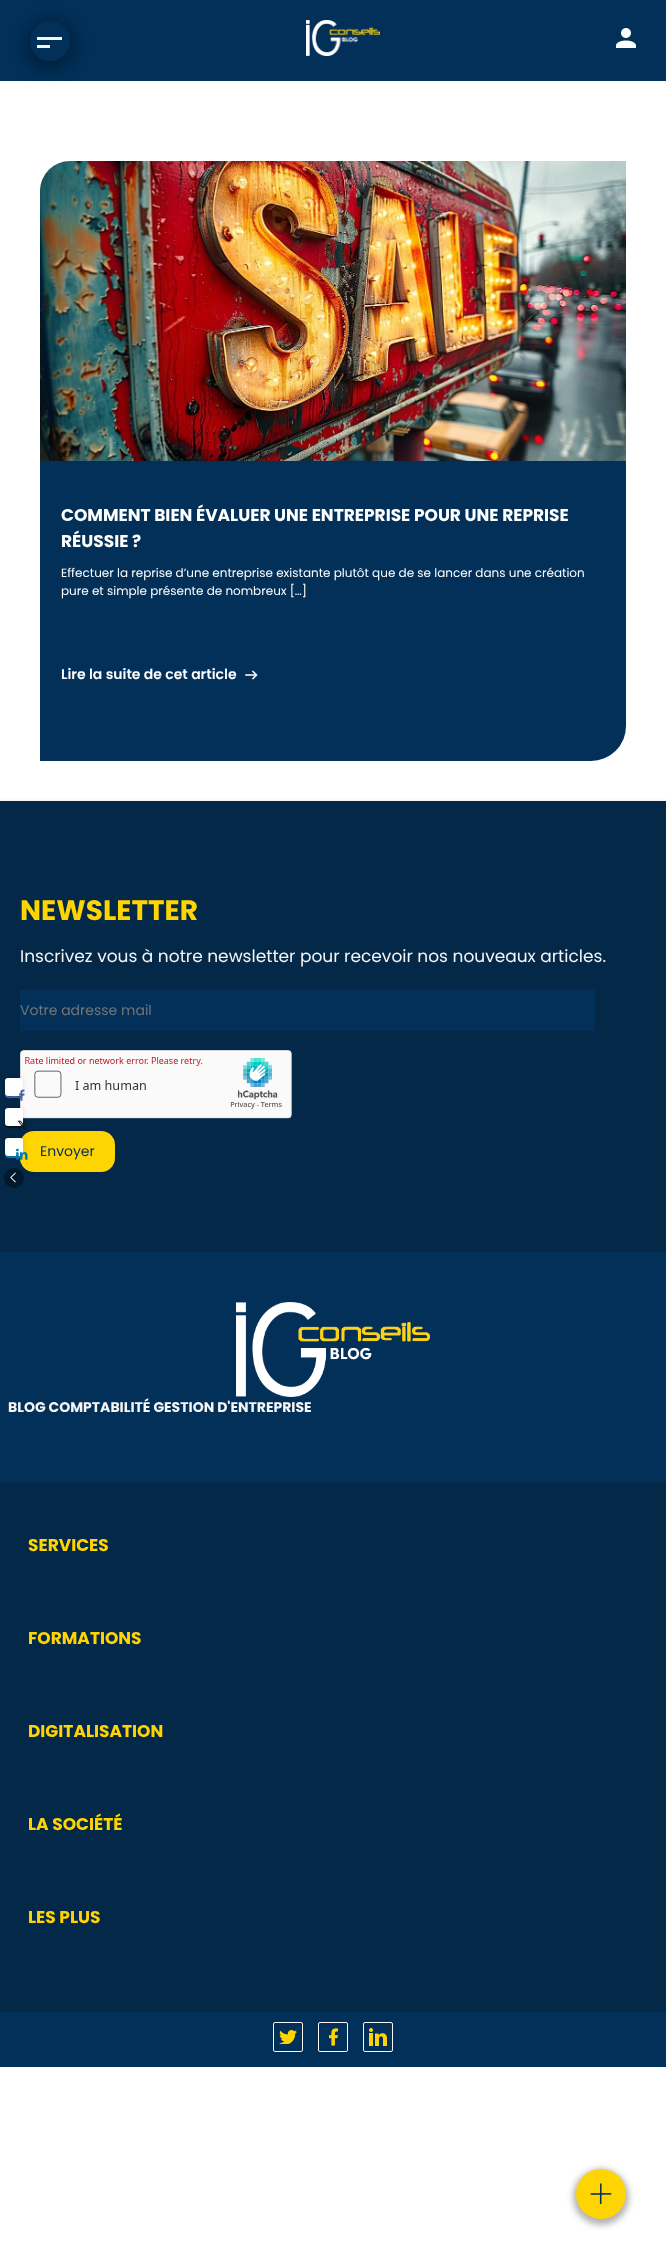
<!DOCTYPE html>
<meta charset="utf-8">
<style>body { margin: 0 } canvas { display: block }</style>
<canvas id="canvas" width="666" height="2259"></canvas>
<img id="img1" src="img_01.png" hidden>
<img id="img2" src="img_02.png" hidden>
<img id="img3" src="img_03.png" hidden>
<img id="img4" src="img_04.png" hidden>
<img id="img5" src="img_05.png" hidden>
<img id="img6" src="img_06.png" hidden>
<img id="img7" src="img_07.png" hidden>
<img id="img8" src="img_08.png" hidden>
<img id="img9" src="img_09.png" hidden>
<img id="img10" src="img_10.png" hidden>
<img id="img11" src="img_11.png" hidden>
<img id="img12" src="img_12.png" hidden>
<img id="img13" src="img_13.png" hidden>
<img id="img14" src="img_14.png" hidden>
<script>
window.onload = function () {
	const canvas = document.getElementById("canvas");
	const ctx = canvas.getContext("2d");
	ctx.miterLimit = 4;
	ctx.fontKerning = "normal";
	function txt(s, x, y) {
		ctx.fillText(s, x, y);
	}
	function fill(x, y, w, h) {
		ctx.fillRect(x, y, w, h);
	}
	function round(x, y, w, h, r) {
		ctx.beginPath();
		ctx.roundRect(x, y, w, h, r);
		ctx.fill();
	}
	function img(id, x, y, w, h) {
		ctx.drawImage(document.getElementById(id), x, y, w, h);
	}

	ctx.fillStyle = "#FFFFFF";
	fill(0, 0, 666, 2259);
	ctx.fillStyle = "#023059";
	fill(0, 0, 666, 81);
	ctx.fillStyle = "rgba(0, 0, 0, 0.3)";
	ctx.filter = "blur(7.5px)";
	ctx.beginPath();
	ctx.roundRect(24, 19, 52, 52, 26);
	ctx.fill();
	ctx.filter = "none";
	ctx.fillStyle = "#023059";
	ctx.beginPath();
	ctx.arc(50, 41, 20, 0, Math.PI * 2);
	ctx.fill();
	ctx.fillStyle = "#F6F6F6";
	fill(37, 37, 25, 3);
	fill(37, 45, 13, 3);
	img("img1", 306, 20, 74, 36);
	img("img2", 616, 28, 20, 20);
	ctx.fillStyle = "#023059";
	ctx.beginPath();
	ctx.roundRect(40, 161, 586, 600, [35, 0, 35, 0]);
	ctx.fill();
	img("img3", 40, 161, 586, 300);
	img("img4", 245, 670, 13, 10);
	fill(0, 2012, 666, 55);
	ctx.fillStyle = "rgba(0, 0, 0, 0.3)";
	ctx.filter = "blur(3px)";
	ctx.beginPath();
	ctx.rect(0, 804, 666, 451);
	ctx.fill();
	ctx.filter = "none";
	ctx.fillStyle = "#032848";
	fill(0, 801, 666, 451);
	ctx.fillStyle = "#023059";
	fill(20, 990, 575, 41);
	img("img5", 20, 1050, 272, 69);
	ctx.fillStyle = "#FFD403";
	round(20, 1131, 95, 41, 14);
	ctx.fillStyle = "#023059";
	fill(0, 1252, 666, 230);
	img("img6", 236, 1302, 194, 95);
	ctx.fillStyle = "#032848";
	fill(0, 1482, 666, 530);
	ctx.beginPath();
	ctx.roundRect(273.5, 2022.5, 29, 29, 1.5);
	ctx.strokeStyle = "#F6F6F6";
	ctx.stroke();
	img("img7", 279, 2030, 18, 14);
	ctx.beginPath();
	ctx.roundRect(318.5, 2022.5, 29, 29, 1.5);
	ctx.stroke();
	img("img8", 329, 2028, 9, 18);
	ctx.beginPath();
	ctx.roundRect(363.5, 2022.5, 29, 29, 1.5);
	ctx.stroke();
	img("img9", 369, 2028, 18, 18);
	ctx.fillStyle = "rgba(0, 0, 0, 0.13)";
	ctx.filter = "blur(2.5px)";
	ctx.beginPath();
	ctx.roundRect(5, 1078, 18, 18, 3);
	ctx.fill();
	ctx.filter = "none";
	ctx.fillStyle = "#43609C";
	ctx.beginPath();
	ctx.moveTo(5, 1093);
	ctx.bezierCurveTo(5, 1099.5, 8.5, 1098, 14, 1098);
	ctx.bezierCurveTo(19.5, 1098, 23, 1099.5, 23, 1093);
	ctx.bezierCurveTo(23, 1097.5, 16.5, 1096, 14, 1096);
	ctx.bezierCurveTo(11.5, 1096, 5, 1097.5, 5, 1093);
	ctx.closePath();
	ctx.fill();
	ctx.fillStyle = "#FFFFFF";
	round(5, 1078, 18, 18, 3);
	img("img10", 19, 1089, 6, 12);
	ctx.fillStyle = "rgba(0, 0, 0, 0.13)";
	ctx.filter = "blur(2.5px)";
	ctx.beginPath();
	ctx.roundRect(5, 1108, 18, 18, 3);
	ctx.fill();
	ctx.filter = "none";
	ctx.fillStyle = "#0F1419";
	ctx.beginPath();
	ctx.moveTo(5, 1123);
	ctx.bezierCurveTo(5, 1129.5, 8.5, 1128, 14, 1128);
	ctx.bezierCurveTo(19.5, 1128, 23, 1129.5, 23, 1123);
	ctx.bezierCurveTo(23, 1127.5, 16.5, 1126, 14, 1126);
	ctx.bezierCurveTo(11.5, 1126, 5, 1127.5, 5, 1123);
	ctx.closePath();
	ctx.fill();
	ctx.fillStyle = "#FFFFFF";
	round(5, 1108, 18, 18, 3);
	img("img11", 17, 1120, 11, 10);
	ctx.fillStyle = "rgba(0, 0, 0, 0.13)";
	ctx.filter = "blur(2.5px)";
	ctx.beginPath();
	ctx.roundRect(5, 1138, 18, 18, 3);
	ctx.fill();
	ctx.filter = "none";
	ctx.fillStyle = "#0077B5";
	ctx.beginPath();
	ctx.moveTo(5, 1153);
	ctx.bezierCurveTo(5, 1159.5, 8.5, 1158, 14, 1158);
	ctx.bezierCurveTo(19.5, 1158, 23, 1159.5, 23, 1153);
	ctx.bezierCurveTo(23, 1157.5, 16.5, 1156, 14, 1156);
	ctx.bezierCurveTo(11.5, 1156, 5, 1157.5, 5, 1153);
	ctx.closePath();
	ctx.fill();
	ctx.fillStyle = "#FFFFFF";
	round(5, 1138, 18, 18, 3);
	img("img12", 16, 1148, 12, 12);
	ctx.fillStyle = "#02182B";
	ctx.beginPath();
	ctx.arc(14, 1178, 10, 0, Math.PI * 2);
	ctx.fill();
	img("img13", 10, 1172, 6, 11);
	ctx.fillStyle = "rgba(0, 0, 0, 0.3)";
	ctx.filter = "blur(3px)";
	ctx.beginPath();
	ctx.roundRect(573, 2169, 56, 56, 28);
	ctx.fill();
	ctx.filter = "none";
	ctx.fillStyle = "#FFD403";
	ctx.beginPath();
	ctx.arc(601, 2194, 25, 0, Math.PI * 2);
	ctx.fill();
	img("img14", 590, 2183, 22, 22);
	ctx.font = "bold 17px Poppins";
	ctx.fillStyle = "#FFFFFF";
	txt("COMMENT BIEN ÉVALUER UNE ENTREPRISE POUR UNE REPRISE", 61, 521);
	txt("RÉUSSIE ?", 61, 547);
	ctx.font = "12px Poppins";
	txt("Effectuer la reprise d’une entreprise existante plutôt que de se lancer dans une création", 61, 577);
	txt("pure et simple présente de nombreux […]", 61, 595);
	ctx.font = "600 14px Poppins";
	txt("Lire la suite de cet article", 61, 679);
	ctx.font = "bold 28px Poppins";
	ctx.fillStyle = "#FFD403";
	txt("NEWSLETTER", 20, 920);
	ctx.font = "17px Poppins";
	ctx.fillStyle = "#F6F6F6";
	txt("Inscrivez vous à notre newsletter pour recevoir nos nouveaux articles.", 20, 962);
	ctx.font = "14px Poppins";
	ctx.fillStyle = "#757575";
	txt("Votre adresse mail", 20, 1015);
	ctx.fillStyle = "#023059";
	txt("Envoyer", 40, 1156);
	ctx.font = "bold 14px Poppins";
	ctx.fillStyle = "#F6F6F6";
	txt("BLOG COMPTABILITÉ GESTION D'ENTREPRISE", 8, 1412);
	ctx.font = "bold 17px Poppins";
	ctx.fillStyle = "#FFD403";
	txt("SERVICES", 28, 1551);
	txt("FORMATIONS", 28, 1644);
	txt("DIGITALISATION", 28, 1737);
	txt("LA SOCIÉTÉ", 28, 1830);
	txt("LES PLUS", 28, 1923);
};
</script>
